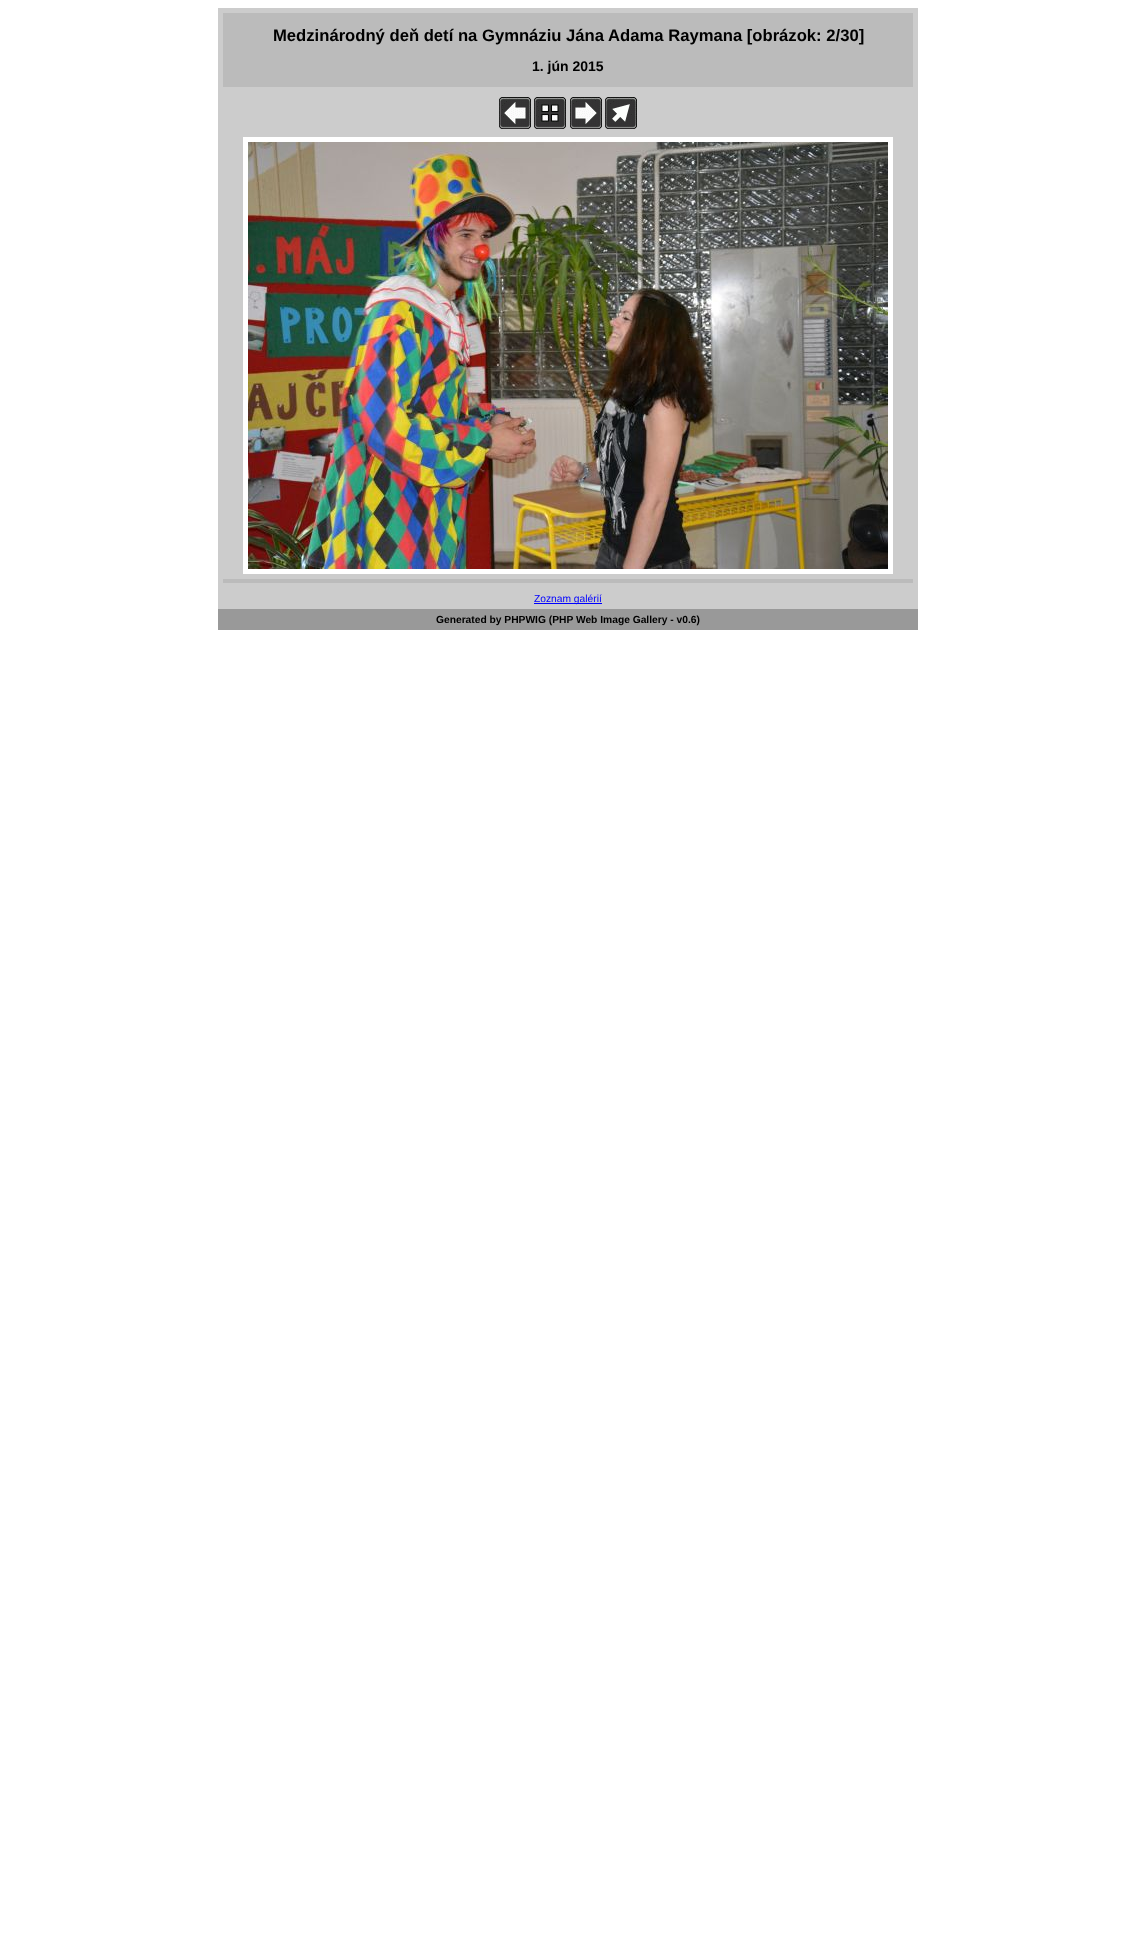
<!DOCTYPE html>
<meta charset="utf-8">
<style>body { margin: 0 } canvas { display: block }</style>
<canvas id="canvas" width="1136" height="1953"></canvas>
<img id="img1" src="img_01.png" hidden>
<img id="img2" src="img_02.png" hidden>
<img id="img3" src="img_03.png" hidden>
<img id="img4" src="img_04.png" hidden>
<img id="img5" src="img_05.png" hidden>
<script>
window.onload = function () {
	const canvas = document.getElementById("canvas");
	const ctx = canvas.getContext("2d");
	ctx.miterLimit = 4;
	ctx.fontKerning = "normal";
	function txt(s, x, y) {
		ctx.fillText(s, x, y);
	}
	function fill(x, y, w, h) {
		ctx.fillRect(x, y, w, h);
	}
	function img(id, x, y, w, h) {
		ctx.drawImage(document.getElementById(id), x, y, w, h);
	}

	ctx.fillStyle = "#FFFFFF";
	fill(0, 0, 1136, 1953);
	ctx.fillStyle = "#CCCCCC";
	fill(218, 8, 700, 601);
	ctx.fillStyle = "#BBBBBB";
	fill(223, 13, 690, 74);
	img("img1", 499, 97, 32, 32);
	img("img2", 534, 97, 32, 32);
	img("img3", 570, 97, 32, 32);
	img("img4", 605, 97, 32, 32);
	ctx.fillStyle = "#FFFFFF";
	fill(243, 137, 650, 437);
	img("img5", 248, 142, 640, 427);
	ctx.fillStyle = "#BBBBBB";
	fill(223, 579, 690, 4);
	ctx.fillStyle = "#0000FF";
	fill(534, 603, 68, 1);
	ctx.fillStyle = "#999999";
	fill(218, 609, 700, 21);
	ctx.font = "bold 16.65px Liberation Sans";
	ctx.fillStyle = "#000000";
	txt("Medzinárodný deň detí na Gymnáziu Jána Adama Raymana [obrázok: 2/30]", 273, 41);
	ctx.font = "bold 14px Liberation Sans";
	txt("1. jún 2015", 532, 71);
	ctx.font = "10.25px Liberation Sans";
	ctx.fillStyle = "#0000FF";
	txt("Zoznam galérií", 534, 602);
	ctx.font = "bold 10.25px Liberation Sans";
	ctx.fillStyle = "#000000";
	txt("Generated by PHPWIG (PHP Web Image Gallery - v0.6)", 436, 623);
};
</script>
